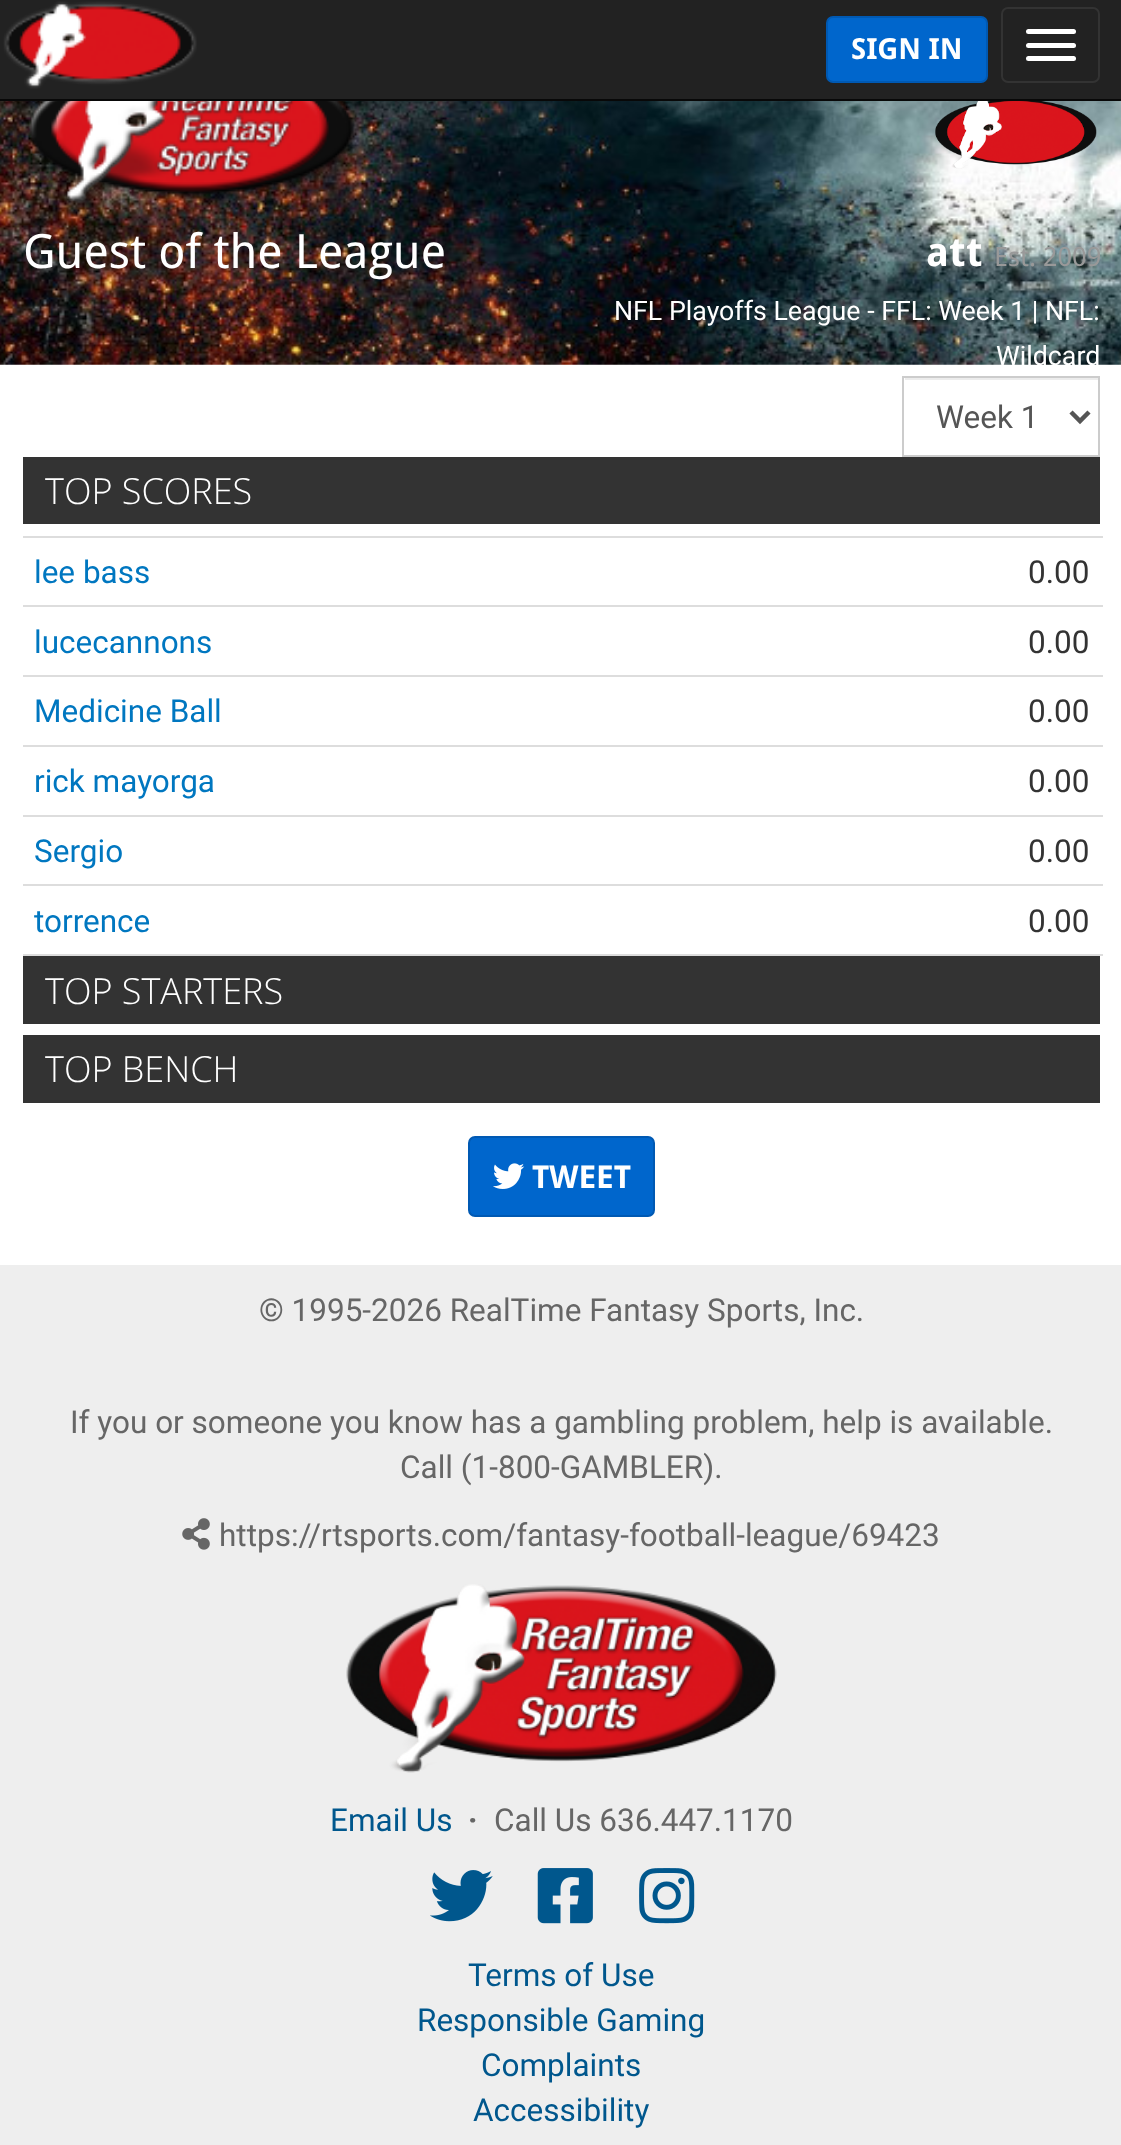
<!DOCTYPE html>
<meta charset="utf-8">
<style>body { margin: 0 } canvas { display: block }</style>
<canvas id="canvas" width="1121" height="2145"></canvas>
<img id="img1" src="img_01.png" hidden>
<img id="img2" src="img_02.png" hidden>
<img id="img3" src="img_03.png" hidden>
<img id="img4" src="img_04.png" hidden>
<img id="img5" src="img_05.png" hidden>
<img id="img6" src="img_06.png" hidden>
<img id="img7" src="img_07.png" hidden>
<img id="img8" src="img_08.png" hidden>
<img id="img9" src="img_09.png" hidden>
<img id="img10" src="img_10.png" hidden>
<script>
window.onload = function () {
	const canvas = document.getElementById("canvas");
	const ctx = canvas.getContext("2d");
	ctx.miterLimit = 4;
	ctx.fontKerning = "normal";
	function txt(s, x, y) {
		ctx.fillText(s, x, y);
	}
	function fill(x, y, w, h) {
		ctx.fillRect(x, y, w, h);
	}
	function round(x, y, w, h, r) {
		ctx.beginPath();
		ctx.roundRect(x, y, w, h, r);
		ctx.fill();
	}
	function img(id, x, y, w, h) {
		ctx.drawImage(document.getElementById(id), x, y, w, h);
	}

	ctx.fillStyle = "#EEEEEE";
	fill(0, 0, 1121, 2145);
	ctx.fillStyle = "#222222";
	fill(0, 0, 1121, 99);
	ctx.fillStyle = "#080808";
	fill(0, 99, 1121, 2);
	img("img1", 3, 1, 194, 88);
	ctx.fillStyle = "#0066CC";
	ctx.beginPath();
	ctx.roundRect(827, 17, 160, 65, 6);
	ctx.fill();
	ctx.strokeStyle = "#0059B3";
	ctx.lineWidth = 2;
	ctx.stroke();
	ctx.beginPath();
	ctx.roundRect(1002, 8, 97, 74, 6);
	ctx.strokeStyle = "#333333";
	ctx.stroke();
	ctx.fillStyle = "#FFFFFF";
	round(1026, 29, 50, 5, 2.5);
	round(1026, 43, 50, 5, 2.5);
	round(1026, 56, 50, 5, 2.5);
	fill(0, 364, 1121, 901);
	img("img2", 0, 101, 1121, 264);
	img("img3", 29, 101, 330, 102);
	img("img4", 935, 101, 162, 68);
	ctx.fillStyle = "#ECECEC";
	fill(905, 378, 193, 2);
	ctx.strokeStyle = "#CCCCCC";
	ctx.strokeRect(903, 377, 196, 79);
	ctx.beginPath();
	ctx.moveTo(1071, 412);
	ctx.lineTo(1080, 421);
	ctx.lineTo(1089, 412);
	ctx.strokeStyle = "#555555";
	ctx.lineWidth = 4.5;
	ctx.stroke();
	ctx.fillStyle = "#333333";
	fill(23, 457, 1077, 67);
	ctx.fillStyle = "#DDDDDD";
	fill(23, 536, 1080, 2);
	fill(23, 605, 1080, 2);
	fill(23, 675, 1080, 2);
	fill(23, 745, 1080, 2);
	fill(23, 815, 1080, 2);
	fill(23, 884, 1080, 2);
	fill(23, 954, 1080, 2);
	ctx.fillStyle = "#333333";
	fill(23, 956, 1077, 68);
	fill(23, 1035, 1077, 68);
	ctx.fillStyle = "#0066CC";
	ctx.beginPath();
	ctx.roundRect(469, 1137, 185, 79, 6);
	ctx.fill();
	ctx.strokeStyle = "#0059B3";
	ctx.lineWidth = 2;
	ctx.stroke();
	img("img5", 493, 1163, 32, 26);
	img("img6", 182, 1518, 28, 32);
	img("img7", 346, 1584, 431, 189);
	img("img8", 430, 1870, 63, 52);
	img("img9", 537, 1868, 56, 56);
	img("img10", 639, 1868, 56, 56);
	ctx.font = "bold 29px Droid Sans";
	ctx.fillStyle = "#FFFFFF";
	txt("SIGN IN", 851, 59);
	ctx.font = "47.25px Droid Sans";
	txt("Guest of the League", 23, 268);
	ctx.font = "bold 40px Droid Sans";
	txt("att", 926, 266);
	ctx.font = "26.5px Droid Sans";
	ctx.fillStyle = "#999999";
	txt("Est. 2009", 994, 266);
	ctx.font = "26.75px Roboto";
	ctx.fillStyle = "#FFFFFF";
	txt("NFL Playoffs League - FFL: Week 1 | NFL:", 614, 320);
	txt("Wildcard", 996, 365);
	ctx.font = "31.5px Roboto";
	ctx.fillStyle = "#555555";
	txt("Week 1", 936, 428);
	ctx.font = "300 36px Open Sans";
	ctx.fillStyle = "#FFFFFF";
	txt("TOP SCORES", 45, 504);
	ctx.font = "31.5px Roboto";
	ctx.fillStyle = "#0077C0";
	txt("lee bass", 34, 583);
	ctx.fillStyle = "#333333";
	txt("0.00", 1028, 583);
	ctx.fillStyle = "#0077C0";
	txt("lucecannons", 34, 653);
	ctx.fillStyle = "#333333";
	txt("0.00", 1028, 653);
	ctx.fillStyle = "#0077C0";
	txt("Medicine Ball", 34, 722);
	ctx.fillStyle = "#333333";
	txt("0.00", 1028, 722);
	ctx.fillStyle = "#0077C0";
	txt("rick mayorga", 34, 792);
	ctx.fillStyle = "#333333";
	txt("0.00", 1028, 792);
	ctx.fillStyle = "#0077C0";
	txt("Sergio", 34, 862);
	ctx.fillStyle = "#333333";
	txt("0.00", 1028, 862);
	ctx.fillStyle = "#0077C0";
	txt("torrence", 34, 932);
	ctx.fillStyle = "#333333";
	txt("0.00", 1028, 932);
	ctx.font = "300 36px Open Sans";
	ctx.fillStyle = "#FFFFFF";
	txt("TOP STARTERS", 45, 1004);
	txt("TOP BENCH", 45, 1082);
	ctx.font = "bold 31.5px Droid Sans";
	txt("TWEET", 532, 1188);
	ctx.font = "31.5px Roboto";
	ctx.fillStyle = "#666666";
	txt("© 1995-2026 RealTime Fantasy Sports, Inc.", 259, 1321);
	txt("If you or someone you know has a gambling problem, help is available.", 70, 1433);
	txt("Call (1-800-GAMBLER).", 400, 1478);
	txt("https://rtsports.com/fantasy-football-league/69423", 219, 1546);
	ctx.fillStyle = "#00578D";
	txt("Email Us", 330, 1831);
	ctx.font = "bold 31.5px Roboto";
	ctx.fillStyle = "#666666";
	txt("·", 468, 1831);
	ctx.font = "31.5px Roboto";
	txt("Call Us 636.447.1170", 494, 1831);
	ctx.fillStyle = "#00578D";
	txt("Terms of Use", 468, 1986);
	txt("Responsible Gaming", 417, 2031);
	txt("Complaints", 481, 2076);
	txt("Accessibility", 473, 2121);
};
</script>
